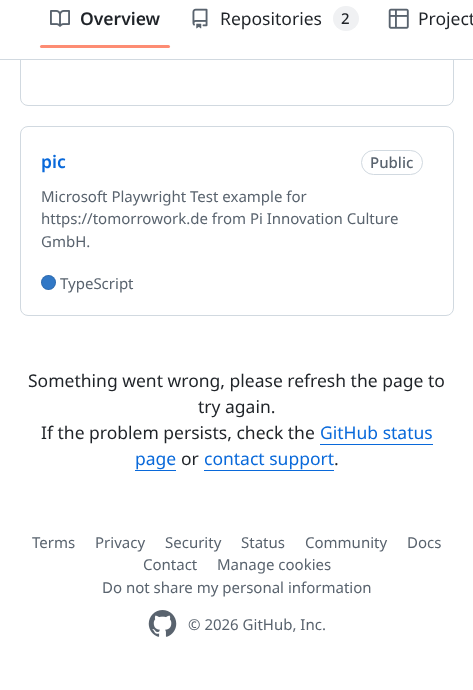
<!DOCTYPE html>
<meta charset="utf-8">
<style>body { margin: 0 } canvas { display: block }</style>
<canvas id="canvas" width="473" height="690"></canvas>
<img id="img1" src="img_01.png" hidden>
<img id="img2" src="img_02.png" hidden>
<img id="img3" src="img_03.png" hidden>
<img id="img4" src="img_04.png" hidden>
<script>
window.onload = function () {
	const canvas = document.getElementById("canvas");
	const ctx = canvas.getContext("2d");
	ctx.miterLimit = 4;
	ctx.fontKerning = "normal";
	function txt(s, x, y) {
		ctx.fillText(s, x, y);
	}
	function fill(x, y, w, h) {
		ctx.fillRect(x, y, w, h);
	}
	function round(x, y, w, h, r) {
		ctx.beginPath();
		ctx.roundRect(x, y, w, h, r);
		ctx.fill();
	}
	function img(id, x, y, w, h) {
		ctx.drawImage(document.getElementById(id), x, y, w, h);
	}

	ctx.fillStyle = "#FFFFFF";
	fill(0, 0, 473, 690);
	ctx.beginPath();
	ctx.roundRect(20.5, -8.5, 433, 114, 7.5);
	ctx.strokeStyle = "#D1D9E0";
	ctx.stroke();
	fill(20, 0, 434, 59);
	ctx.fillStyle = "#D1D9E0";
	fill(0, 59, 473, 1);
	img("img1", 50, 10, 20, 17);
	ctx.fillStyle = "#FD8C73";
	round(40, 45, 130, 3, 1.5);
	img("img2", 192, 8, 16, 21);
	ctx.fillStyle = "#F0F1F3";
	round(333, 6, 26, 25, 12.5);
	img("img3", 388, 8, 21, 21);
	ctx.beginPath();
	ctx.roundRect(20.5, 126.5, 433, 189, 7.5);
	ctx.stroke();
	ctx.beginPath();
	ctx.roundRect(361.5, 150.5, 61, 24, 12);
	ctx.stroke();
	ctx.fillStyle = "#3178C6";
	ctx.beginPath();
	ctx.arc(48.5, 282.5, 7.5, 0, Math.PI * 2);
	ctx.fill();
	ctx.beginPath();
	ctx.arc(48.5, 282.5, 7, 0, Math.PI * 2);
	ctx.strokeStyle = "rgba(31, 35, 40, 0.15)";
	ctx.stroke();
	ctx.fillStyle = "#0969DA";
	fill(320, 444, 113, 1);
	fill(135, 470, 41, 1);
	fill(204, 470, 130, 1);
	img("img4", 148, 610, 29, 27);
	ctx.font = "600 17.5px Noto Sans";
	ctx.fillStyle = "#1F2328";
	txt("Overview", 80, 25);
	ctx.font = "17.5px Noto Sans";
	txt("Repositories", 220, 25);
	ctx.font = "500 15px Noto Sans";
	txt("2", 341, 24);
	ctx.font = "17.5px Noto Sans";
	txt("Project", 418, 25);
	ctx.font = "600 17.5px Noto Sans";
	ctx.fillStyle = "#0969DA";
	txt("pic", 41, 168);
	ctx.font = "500 15px Noto Sans";
	ctx.fillStyle = "#59636E";
	txt("Public", 370, 168);
	ctx.font = "15px Noto Sans";
	txt("Microsoft Playwright Test example for", 41, 202);
	txt("https://tomorrowork.de from Pi Innovation Culture", 41, 224);
	txt("GmbH.", 41, 247);
	txt("TypeScript", 60, 289);
	ctx.font = "17.5px Noto Sans";
	ctx.fillStyle = "#1F2328";
	txt("Something went wrong, please refresh the page to", 28, 387);
	txt("try again.", 198, 413);
	txt("If the problem persists, check the", 41, 439);
	ctx.fillStyle = "#0969DA";
	txt("GitHub status", 320, 439);
	txt("page", 135, 465);
	ctx.fillStyle = "#1F2328";
	txt("or", 181, 465);
	ctx.fillStyle = "#0969DA";
	txt("contact support", 204, 465);
	ctx.fillStyle = "#1F2328";
	txt(".", 334, 465);
	ctx.font = "15px Noto Sans";
	ctx.fillStyle = "#59636E";
	txt("Terms", 32, 548);
	txt("Privacy", 95, 548);
	txt("Security", 165, 548);
	txt("Status", 241, 548);
	txt("Community", 305, 548);
	txt("Docs", 407, 548);
	txt("Contact", 143, 570);
	txt("Manage cookies", 217, 570);
	txt("Do not share my personal information", 102, 593);
	txt("© 2026 GitHub, Inc.", 188, 630);
};
</script>
